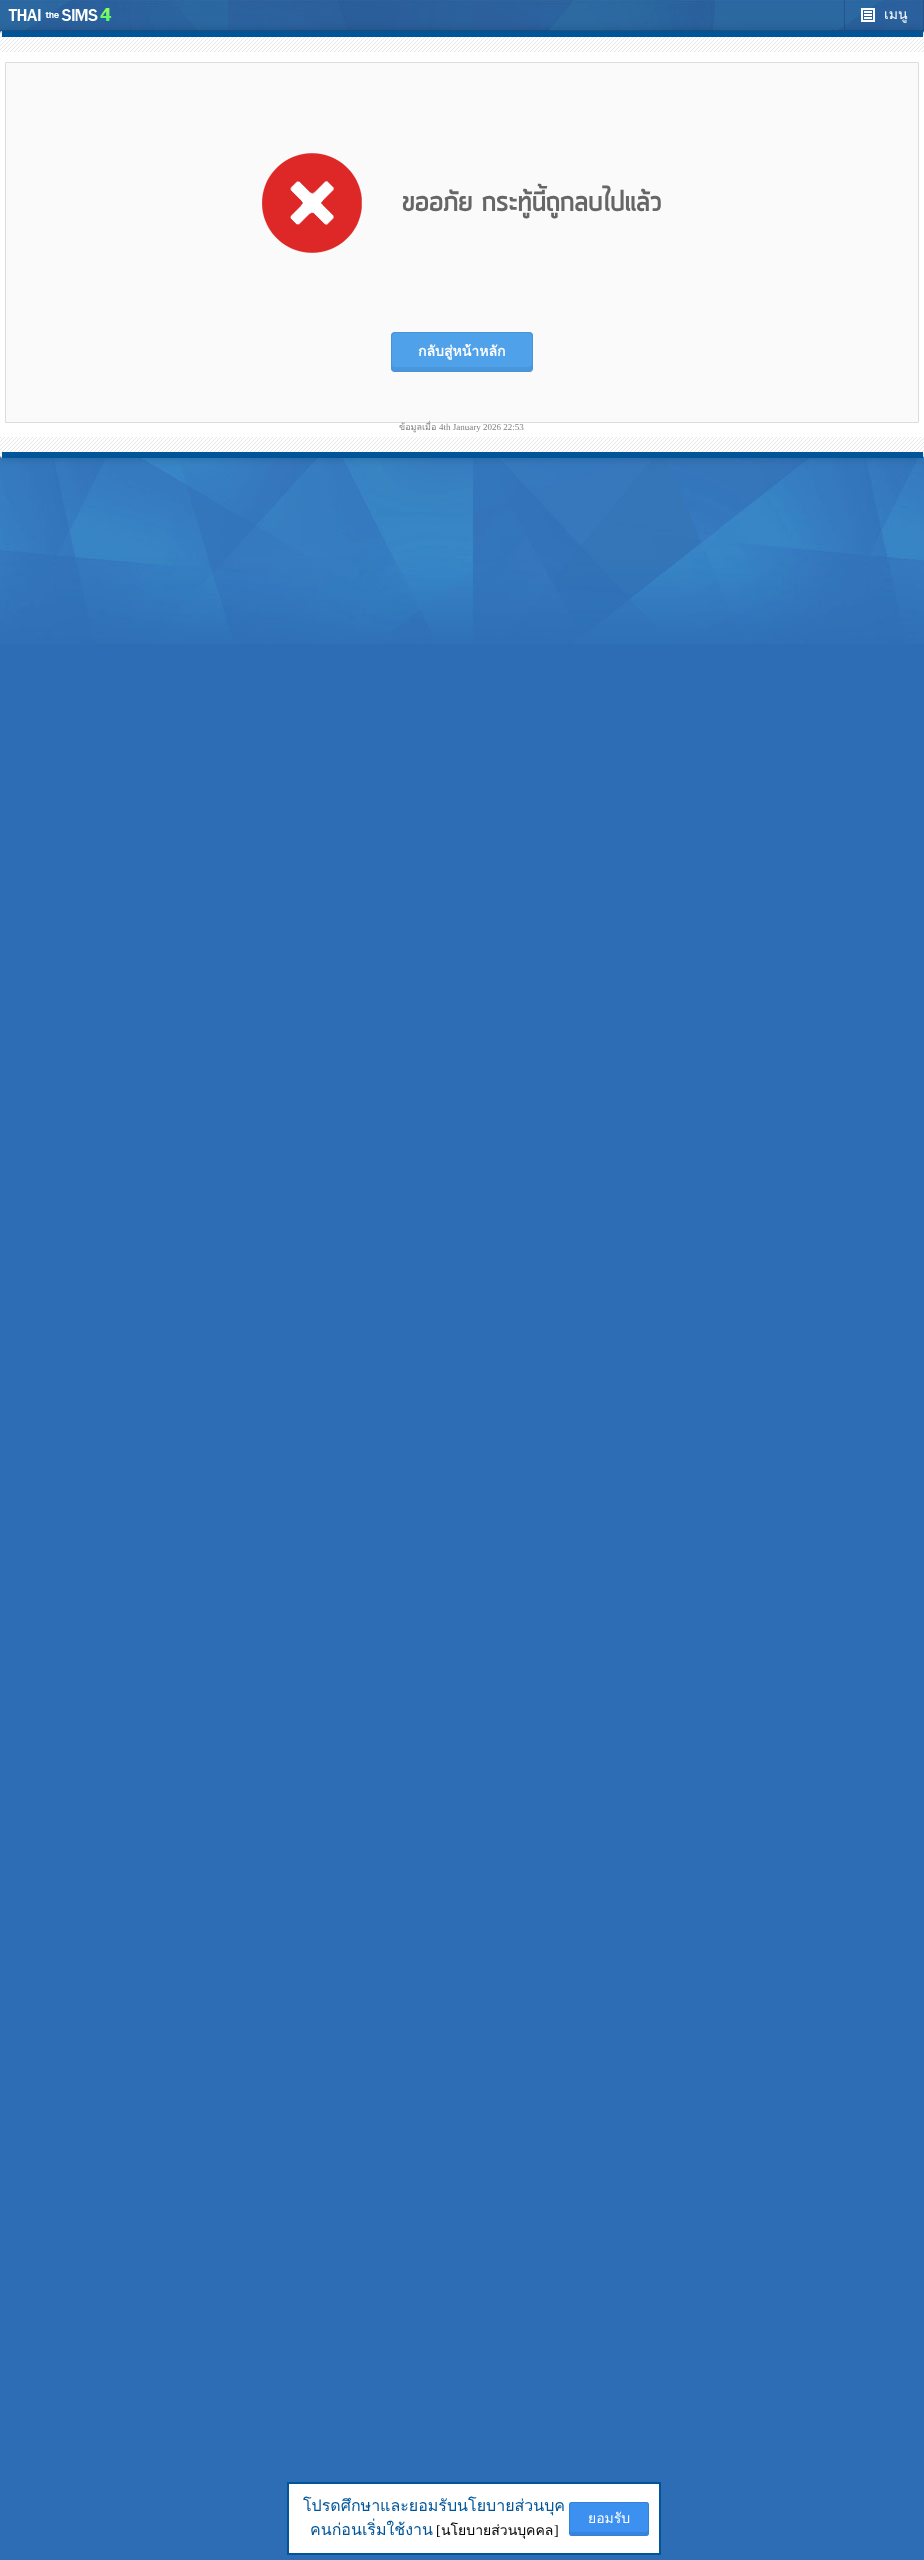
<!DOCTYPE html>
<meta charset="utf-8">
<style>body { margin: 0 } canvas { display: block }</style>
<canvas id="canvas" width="924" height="2560"></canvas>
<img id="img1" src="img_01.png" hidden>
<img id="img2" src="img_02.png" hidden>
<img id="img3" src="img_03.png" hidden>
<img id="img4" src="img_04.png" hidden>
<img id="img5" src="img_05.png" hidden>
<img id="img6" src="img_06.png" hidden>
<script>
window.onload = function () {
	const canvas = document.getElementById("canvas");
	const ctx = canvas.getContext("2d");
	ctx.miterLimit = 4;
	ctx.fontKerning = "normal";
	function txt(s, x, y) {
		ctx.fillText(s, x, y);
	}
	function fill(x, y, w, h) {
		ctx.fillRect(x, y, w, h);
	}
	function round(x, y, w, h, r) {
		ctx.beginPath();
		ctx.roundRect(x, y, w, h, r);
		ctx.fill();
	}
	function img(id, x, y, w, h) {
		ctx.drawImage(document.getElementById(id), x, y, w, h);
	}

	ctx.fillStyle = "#2D6DB5";
	fill(0, 0, 924, 2560);
	img("img1", 0, 0, 924, 644);
	ctx.fillStyle = "rgba(28, 60, 106, 0.4)";
	fill(0, 0, 924, 31);
	fill(0, 30, 924, 1);
	ctx.fillStyle = "rgba(0, 0, 0, 0.2)";
	ctx.filter = "blur(5px)";
	ctx.beginPath();
	ctx.roundRect(0, 31, 924, 427, 3);
	ctx.fill();
	ctx.filter = "none";
	img("img2", 8, 8, 104, 13);
	ctx.fillStyle = "rgba(28, 60, 106, 0.4)";
	fill(923, 0, 1, 30);
	fill(844, 0, 1, 30);
	img("img3", 861, 8, 14, 14);
	ctx.fillStyle = "#FFFFFF";
	round(0, 31, 924, 427, 3);
	img("img4", 0, 32, 924, 20);
	ctx.fillStyle = "#005599";
	fill(2, 31, 921, 6);
	ctx.fillStyle = "#FAFAFA";
	ctx.beginPath();
	ctx.rect(5.5, 62.5, 913, 360);
	ctx.fill();
	ctx.strokeStyle = "#DDDDDD";
	ctx.stroke();
	img("img5", 262, 153, 100, 100);
	ctx.fillStyle = "#4FA1EA";
	round(391, 332, 142, 40, 4);
	ctx.fillStyle = "#4996DA";
	ctx.beginPath();
	ctx.moveTo(392, 364);
	ctx.lineTo(392, 368);
	ctx.bezierCurveTo(392, 370, 393, 371, 395, 371);
	ctx.lineTo(529, 371);
	ctx.bezierCurveTo(531, 371, 532, 370, 532, 368);
	ctx.lineTo(532, 364);
	ctx.bezierCurveTo(532, 366, 531, 367, 529, 367);
	ctx.lineTo(395, 367);
	ctx.bezierCurveTo(393, 367, 392, 366, 392, 364);
	ctx.closePath();
	ctx.fill();
	ctx.beginPath();
	ctx.roundRect(391.5, 332.5, 141, 39, 3.5);
	ctx.strokeStyle = "#4994D8";
	ctx.stroke();
	ctx.fillStyle = "#FFFFFF";
	ctx.beginPath();
	ctx.rect(288, 2483, 372, 71);
	ctx.fill();
	ctx.strokeStyle = "#005599";
	ctx.lineWidth = 2;
	ctx.stroke();
	ctx.fillStyle = "#3C90F0";
	round(569, 2502, 80, 34, 3);
	ctx.fillStyle = "#3784DD";
	ctx.beginPath();
	ctx.moveTo(570, 2530);
	ctx.lineTo(570, 2533);
	ctx.bezierCurveTo(570, 2534, 571, 2535, 572, 2535);
	ctx.lineTo(646, 2535);
	ctx.bezierCurveTo(647, 2535, 648, 2534, 648, 2533);
	ctx.lineTo(648, 2530);
	ctx.bezierCurveTo(648, 2531, 647, 2532, 646, 2532);
	ctx.lineTo(572, 2532);
	ctx.bezierCurveTo(571, 2532, 570, 2531, 570, 2530);
	ctx.closePath();
	ctx.fill();
	ctx.beginPath();
	ctx.roundRect(569.5, 2502.5, 79, 33, 2.5);
	ctx.strokeStyle = "#3681D8";
	ctx.lineWidth = 1;
	ctx.stroke();
	img("img6", 0, 437, 924, 20);
	ctx.fillStyle = "#005599";
	fill(2, 452, 921, 6);
	ctx.font = "14px Loma";
	ctx.fillStyle = "#FFFFFF";
	txt("เมนู", 884, 19);
	ctx.font = "bold 30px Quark";
	ctx.fillStyle = "#666666";
	txt("ขออภัย กระทู้นี้ถูกลบไปแล้ว", 402, 211);
	ctx.font = "bold 14px Loma";
	ctx.fillStyle = "#FFFFFF";
	txt("กลับสู่หน้าหลัก", 418, 356);
	ctx.font = "9px Loma";
	ctx.fillStyle = "#808080";
	txt("ข้อมูลเมื่อ", 399, 430);
	ctx.font = "9px Liberation Serif";
	txt("4th January 2026 22:53", 439, 430);
	ctx.font = "16px Loma";
	ctx.fillStyle = "#005599";
	txt("โปรดศึกษาและยอมรับนโยบายส่วนบุค", 303, 2511);
	txt("คนก่อนเริ่มใช้งาน", 310, 2535);
	ctx.font = "14px Liberation Serif";
	ctx.fillStyle = "#000000";
	txt("[", 436, 2535);
	ctx.font = "14px Loma";
	txt("นโยบายส่วนบุคคล", 441, 2535);
	ctx.font = "14px Liberation Serif";
	txt("]", 554, 2535);
	ctx.font = "14px Loma";
	ctx.fillStyle = "#FFFFFF";
	txt("ยอมรับ", 588, 2523);
};
</script>
